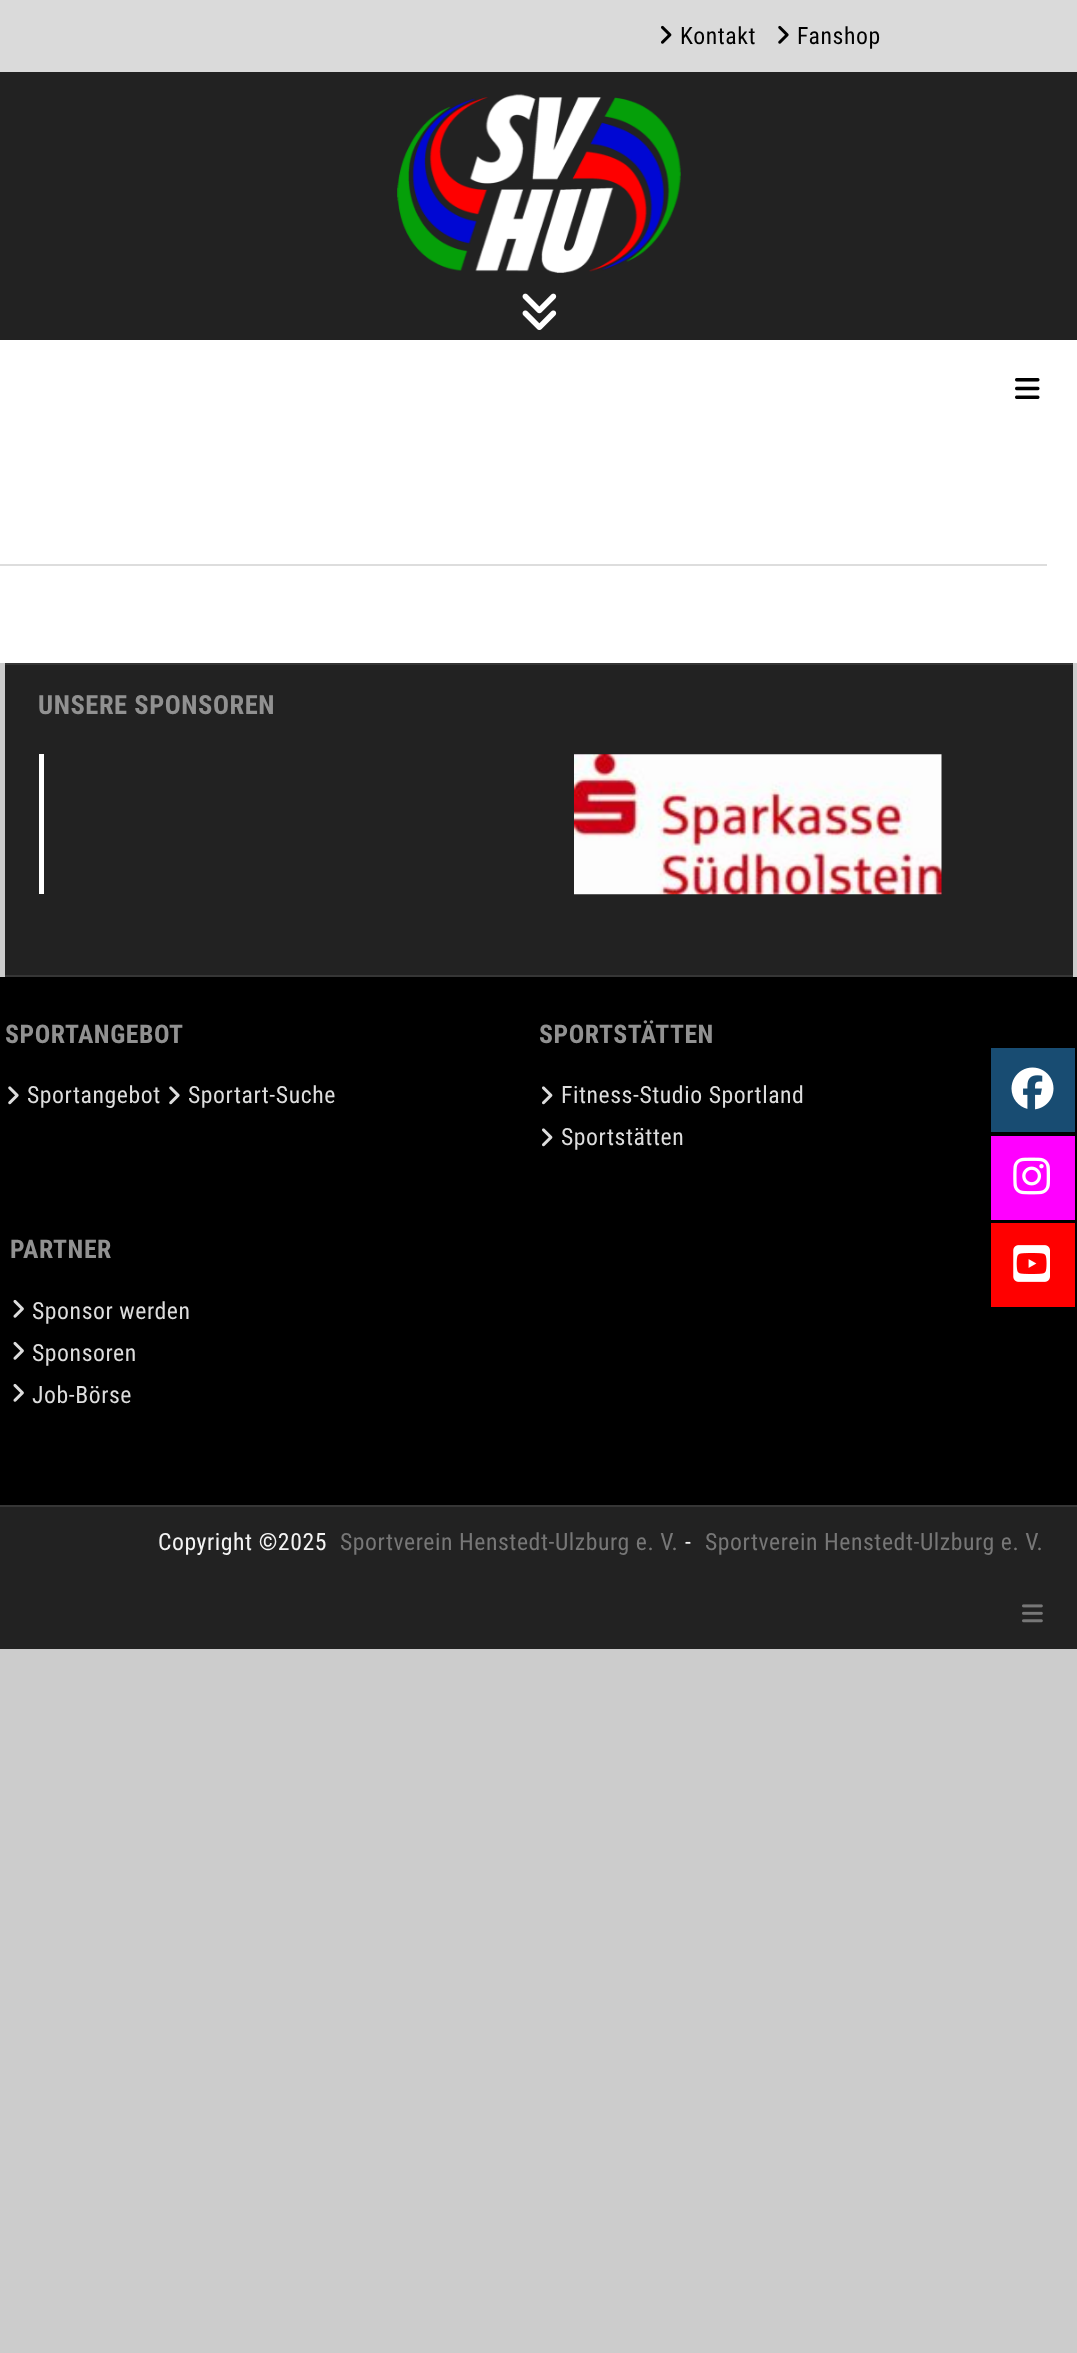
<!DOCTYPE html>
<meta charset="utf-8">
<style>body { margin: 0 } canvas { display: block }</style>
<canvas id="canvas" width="1077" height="2353"></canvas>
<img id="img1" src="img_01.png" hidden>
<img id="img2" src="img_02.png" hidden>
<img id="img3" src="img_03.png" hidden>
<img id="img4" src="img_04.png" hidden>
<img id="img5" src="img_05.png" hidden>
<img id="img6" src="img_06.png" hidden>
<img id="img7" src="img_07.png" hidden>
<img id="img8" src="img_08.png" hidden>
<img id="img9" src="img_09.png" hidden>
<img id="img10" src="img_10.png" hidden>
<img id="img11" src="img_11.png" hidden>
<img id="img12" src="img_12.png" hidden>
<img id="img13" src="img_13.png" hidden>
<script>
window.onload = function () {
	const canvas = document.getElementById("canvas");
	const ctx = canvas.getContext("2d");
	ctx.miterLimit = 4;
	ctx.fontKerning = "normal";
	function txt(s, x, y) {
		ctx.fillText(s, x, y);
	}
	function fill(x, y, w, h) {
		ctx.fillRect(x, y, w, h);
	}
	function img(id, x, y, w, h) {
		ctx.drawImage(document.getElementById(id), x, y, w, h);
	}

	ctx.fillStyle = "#CCCCCC";
	fill(0, 0, 1077, 2353);
	ctx.fillStyle = "#DADADA";
	fill(0, 0, 1077, 72);
	img("img1", 661, 25, 11, 19);
	img("img2", 778, 25, 11, 19);
	ctx.fillStyle = "#222222";
	fill(0, 72, 1077, 268);
	img("img3", 397, 94, 284, 179);
	img("img4", 522, 293, 35, 37);
	ctx.fillStyle = "#FFFFFF";
	fill(0, 340, 1077, 323);
	img("img5", 1015, 378, 25, 21);
	ctx.fillStyle = "#DDDDDD";
	fill(0, 564, 1047, 2);
	ctx.fillStyle = "#222222";
	fill(5, 665, 1068, 310);
	ctx.fillStyle = "#363636";
	fill(5, 663, 1068, 2);
	fill(5, 975, 1068, 2);
	ctx.fillStyle = "#FFFFFF";
	fill(39, 754, 5, 140);
	img("img6", 574, 754, 368, 141);
	ctx.fillStyle = "#000000";
	fill(0, 977, 1077, 528);
	img("img7", 8, 1086, 11, 19);
	img("img7", 169, 1086, 11, 19);
	img("img8", 542, 1086, 11, 19);
	img("img8", 542, 1128, 11, 19);
	img("img9", 13, 1299, 11, 19);
	img("img9", 13, 1341, 11, 19);
	img("img9", 13, 1383, 11, 19);
	ctx.fillStyle = "#222222";
	fill(0, 1507, 1077, 142);
	ctx.fillStyle = "#363636";
	fill(0, 1505, 1077, 2);
	img("img10", 1022, 1604, 21, 19);
	ctx.fillStyle = "#184C72";
	fill(991, 1048, 84, 84);
	img("img11", 1011, 1067, 43, 43);
	ctx.fillStyle = "#FF00FF";
	fill(991, 1136, 84, 84);
	img("img12", 1013, 1157, 37, 38);
	ctx.fillStyle = "#FF0000";
	fill(991, 1223, 84, 84);
	img("img13", 1013, 1245, 37, 37);
	ctx.letterSpacing = "0.55px";
	ctx.font = "23.75px Roboto Condensed";
	ctx.fillStyle = "#000000";
	txt("Kontakt", 680, 44);
	txt("Fanshop", 797, 44);
	ctx.font = "bold 26.5px Roboto Condensed";
	ctx.fillStyle = "#919191";
	txt("UNSERE SPONSOREN", 38, 714);
	ctx.font = "bold 25.75px Roboto Condensed";
	txt("SPORTANGEBOT", 5, 1043);
	ctx.font = "23.75px Roboto Condensed";
	ctx.fillStyle = "#DDDDDD";
	txt("Sportangebot", 27, 1103);
	txt("Sportart-Suche", 188, 1103);
	ctx.font = "bold 25.75px Roboto Condensed";
	ctx.fillStyle = "#919191";
	txt("SPORTSTÄTTEN", 539, 1043);
	ctx.font = "23.75px Roboto Condensed";
	ctx.fillStyle = "#DDDDDD";
	txt("Fitness-Studio Sportland", 561, 1103);
	txt("Sportstätten", 561, 1145);
	ctx.font = "bold 25.75px Roboto Condensed";
	ctx.fillStyle = "#919191";
	txt("PARTNER", 10, 1258);
	ctx.font = "23.75px Roboto Condensed";
	ctx.fillStyle = "#DDDDDD";
	txt("Sponsor werden", 32, 1319);
	txt("Sponsoren", 32, 1361);
	txt("Job-Börse", 32, 1403);
	ctx.fillStyle = "#F4F4F4";
	txt("Copyright ©2025", 158, 1550);
	ctx.fillStyle = "#777777";
	txt("Sportverein Henstedt-Ulzburg e. V.", 340, 1550);
	ctx.fillStyle = "#F4F4F4";
	txt("-", 685, 1550);
	ctx.fillStyle = "#777777";
	txt("Sportverein Henstedt-Ulzburg e. V.", 705, 1550);
};
</script>
